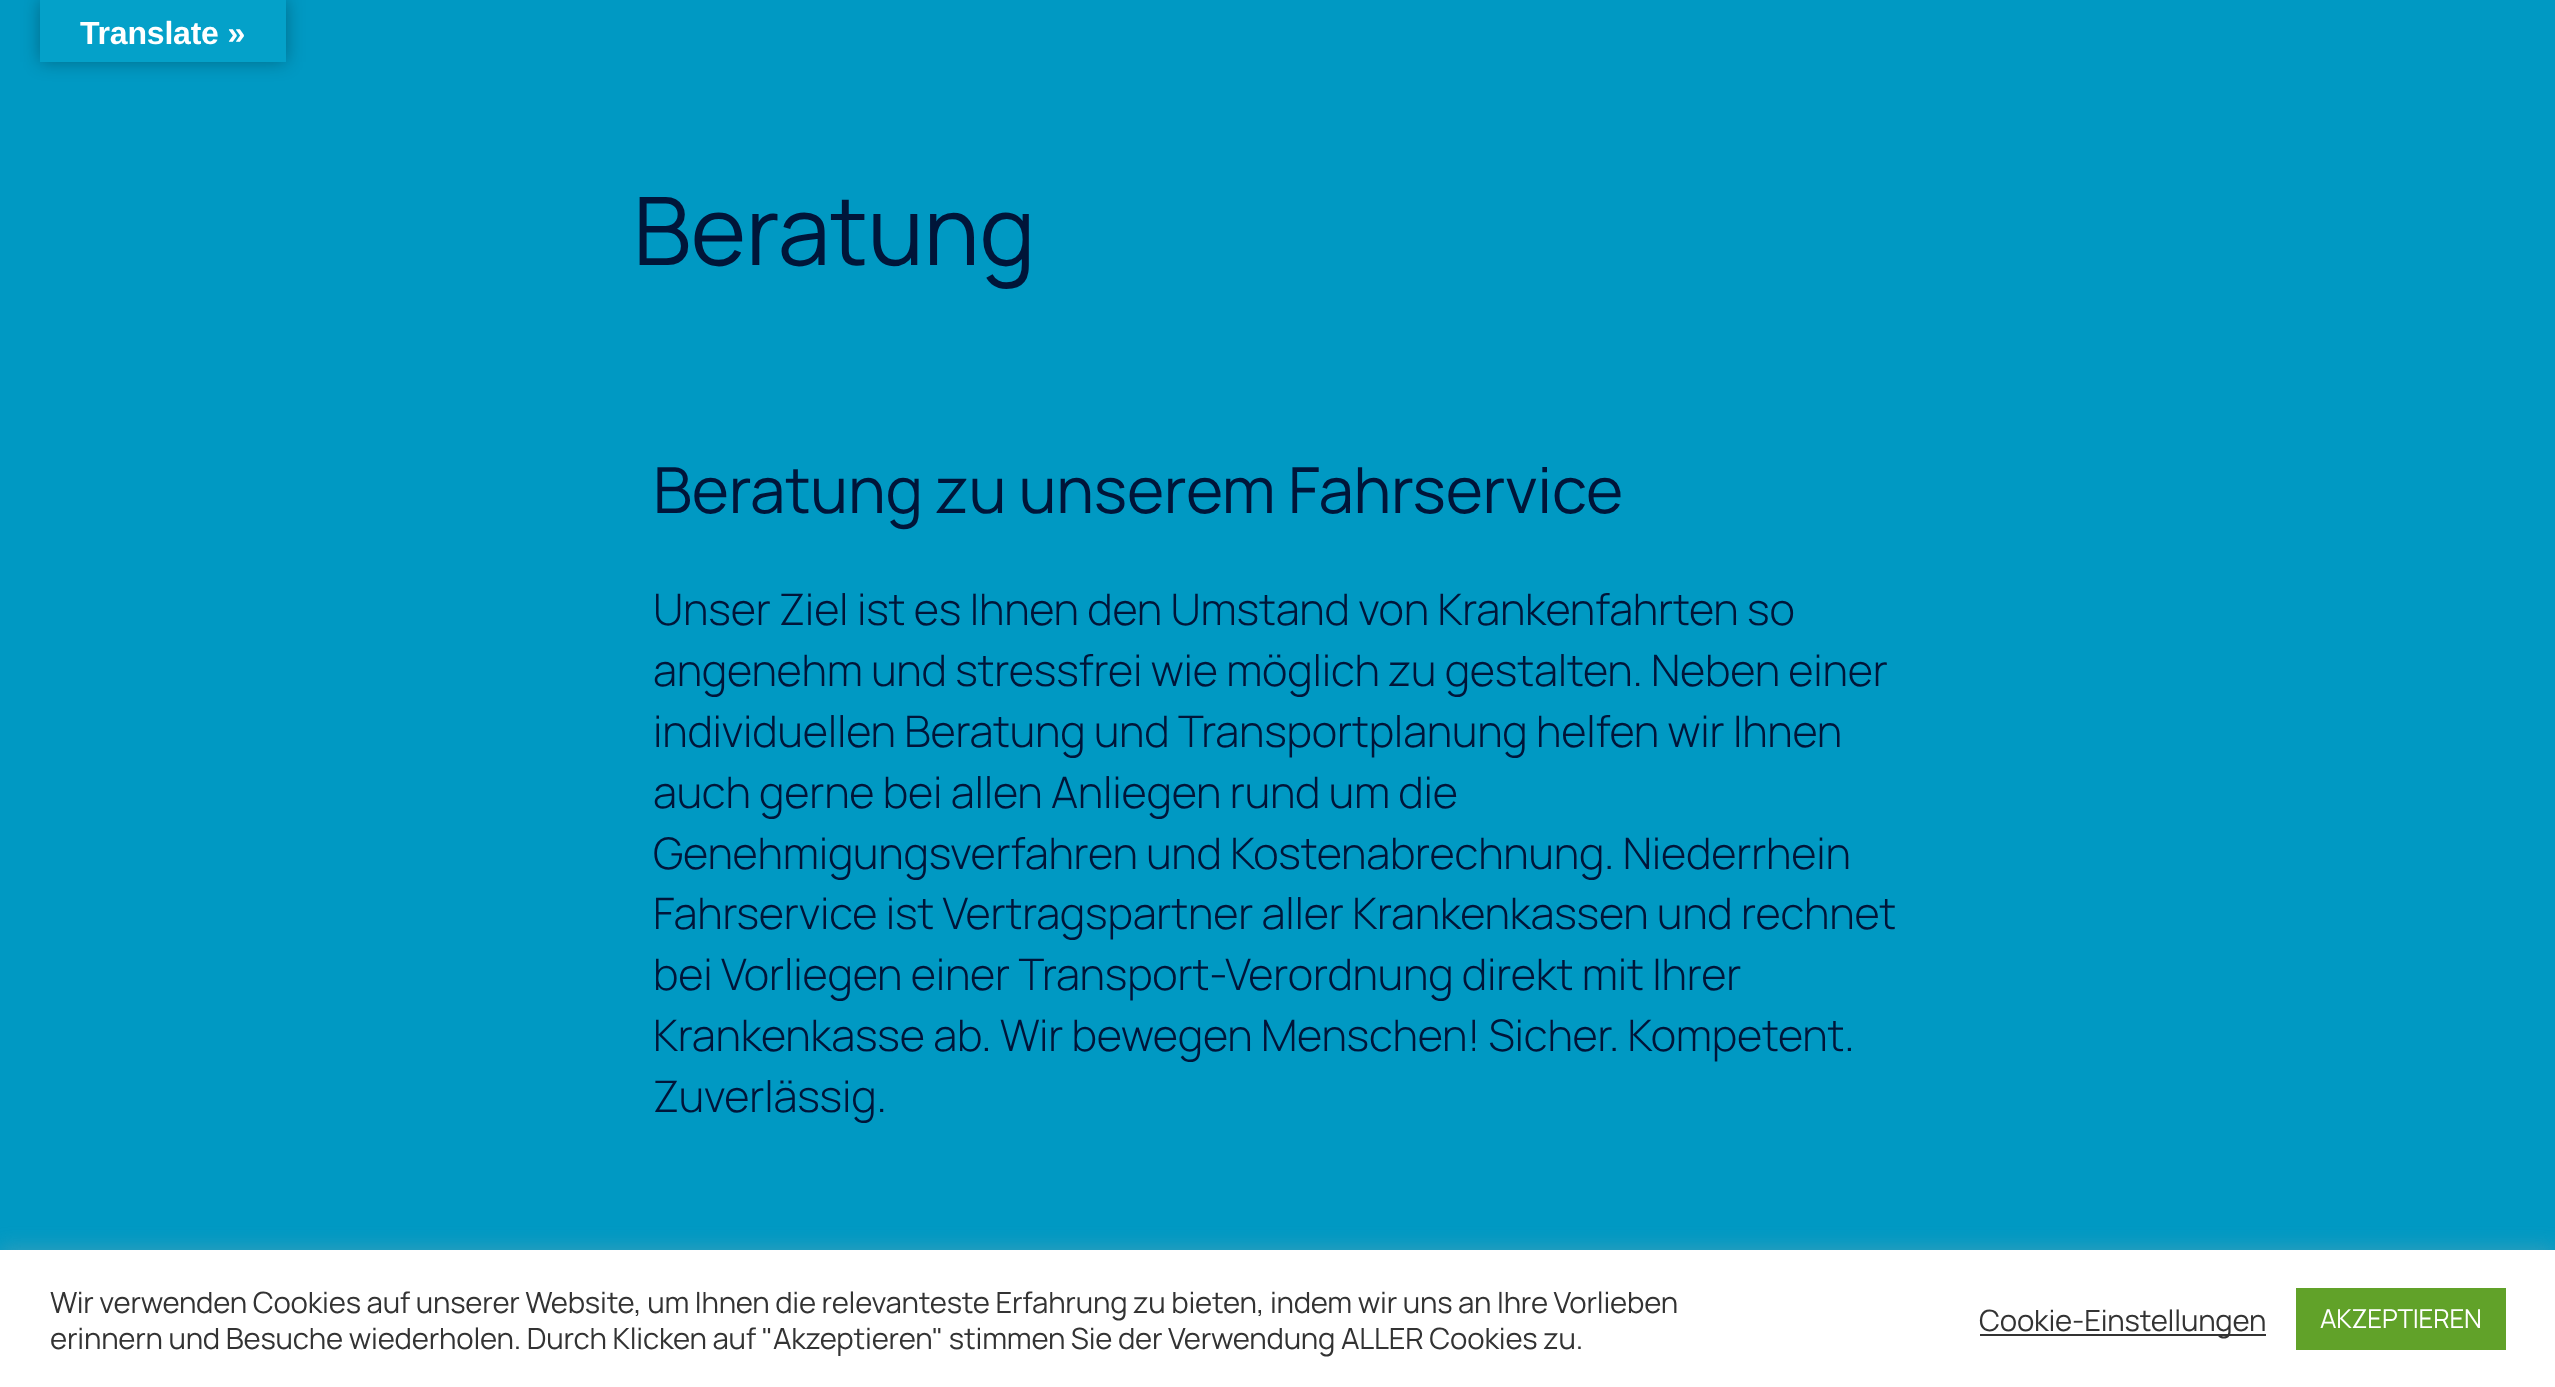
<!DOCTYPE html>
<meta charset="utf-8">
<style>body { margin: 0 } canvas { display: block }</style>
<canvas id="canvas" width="2555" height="1387"></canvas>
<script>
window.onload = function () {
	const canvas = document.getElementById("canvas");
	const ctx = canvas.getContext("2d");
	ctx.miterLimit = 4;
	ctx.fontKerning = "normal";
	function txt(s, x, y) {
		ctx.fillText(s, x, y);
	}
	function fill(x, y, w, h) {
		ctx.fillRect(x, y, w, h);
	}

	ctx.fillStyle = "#0099C3";
	fill(0, 0, 2555, 1387);
	ctx.fillStyle = "rgba(0, 0, 0, 0.3)";
	ctx.filter = "blur(9px)";
	ctx.beginPath();
	ctx.rect(40, 0, 246, 62);
	ctx.fill();
	ctx.filter = "none";
	ctx.fillStyle = "#04A1C9";
	fill(40, 0, 246, 62);
	ctx.fillStyle = "rgba(172, 171, 171, 0.3)";
	ctx.filter = "blur(10px)";
	ctx.beginPath();
	ctx.rect(0, 1248, 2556, 138);
	ctx.fill();
	ctx.filter = "none";
	ctx.fillStyle = "#FFFFFF";
	fill(0, 1250, 2555, 137);
	ctx.fillStyle = "#333333";
	fill(1980, 1334, 286, 2);
	ctx.fillStyle = "#61A229";
	fill(2296, 1288, 210, 62);
	ctx.letterSpacing = "-0.2px";
	ctx.font = "bold 32px Liberation Sans";
	ctx.fillStyle = "#FFFFFF";
	txt("Translate »", 80, 44);
	ctx.font = "94.5px Manrope";
	ctx.fillStyle = "#001539";
	txt("Beratung", 633, 265);
	ctx.font = "63.5px Manrope";
	txt("Beratung zu unserem Fahrservice", 653, 513);
	ctx.font = "300 43.5px Manrope";
	txt("Unser Ziel ist es Ihnen den Umstand von Krankenfahrten so", 653, 625);
	txt("angenehm und stressfrei wie möglich zu gestalten. Neben einer", 653, 686);
	txt("individuellen Beratung und Transportplanung helfen wir Ihnen", 653, 747);
	txt("auch gerne bei allen Anliegen rund um die", 653, 808);
	txt("Genehmigungsverfahren und Kostenabrechnung. Niederrhein", 653, 869);
	txt("Fahrservice ist Vertragspartner aller Krankenkassen und rechnet", 653, 929);
	txt("bei Vorliegen einer Transport-Verordnung direkt mit Ihrer", 653, 990);
	txt("Krankenkasse ab. Wir bewegen Menschen! Sicher. Kompetent.", 653, 1051);
	txt("Zuverlässig.", 653, 1112);
	ctx.font = "29.33px Manrope";
	ctx.fillStyle = "#333333";
	txt("Wir verwenden Cookies auf unserer Website, um Ihnen die relevanteste Erfahrung zu bieten, indem wir uns an Ihre Vorlieben", 50, 1313);
	txt("erinnern und Besuche wiederholen. Durch Klicken auf \"Akzeptieren\" stimmen Sie der Verwendung ALLER Cookies zu.", 50, 1349);
	txt("Cookie-Einstellungen", 1979, 1331);
	ctx.font = "26px Manrope";
	ctx.fillStyle = "#FFFFFF";
	txt("AKZEPTIEREN", 2320, 1328);
};
</script>
